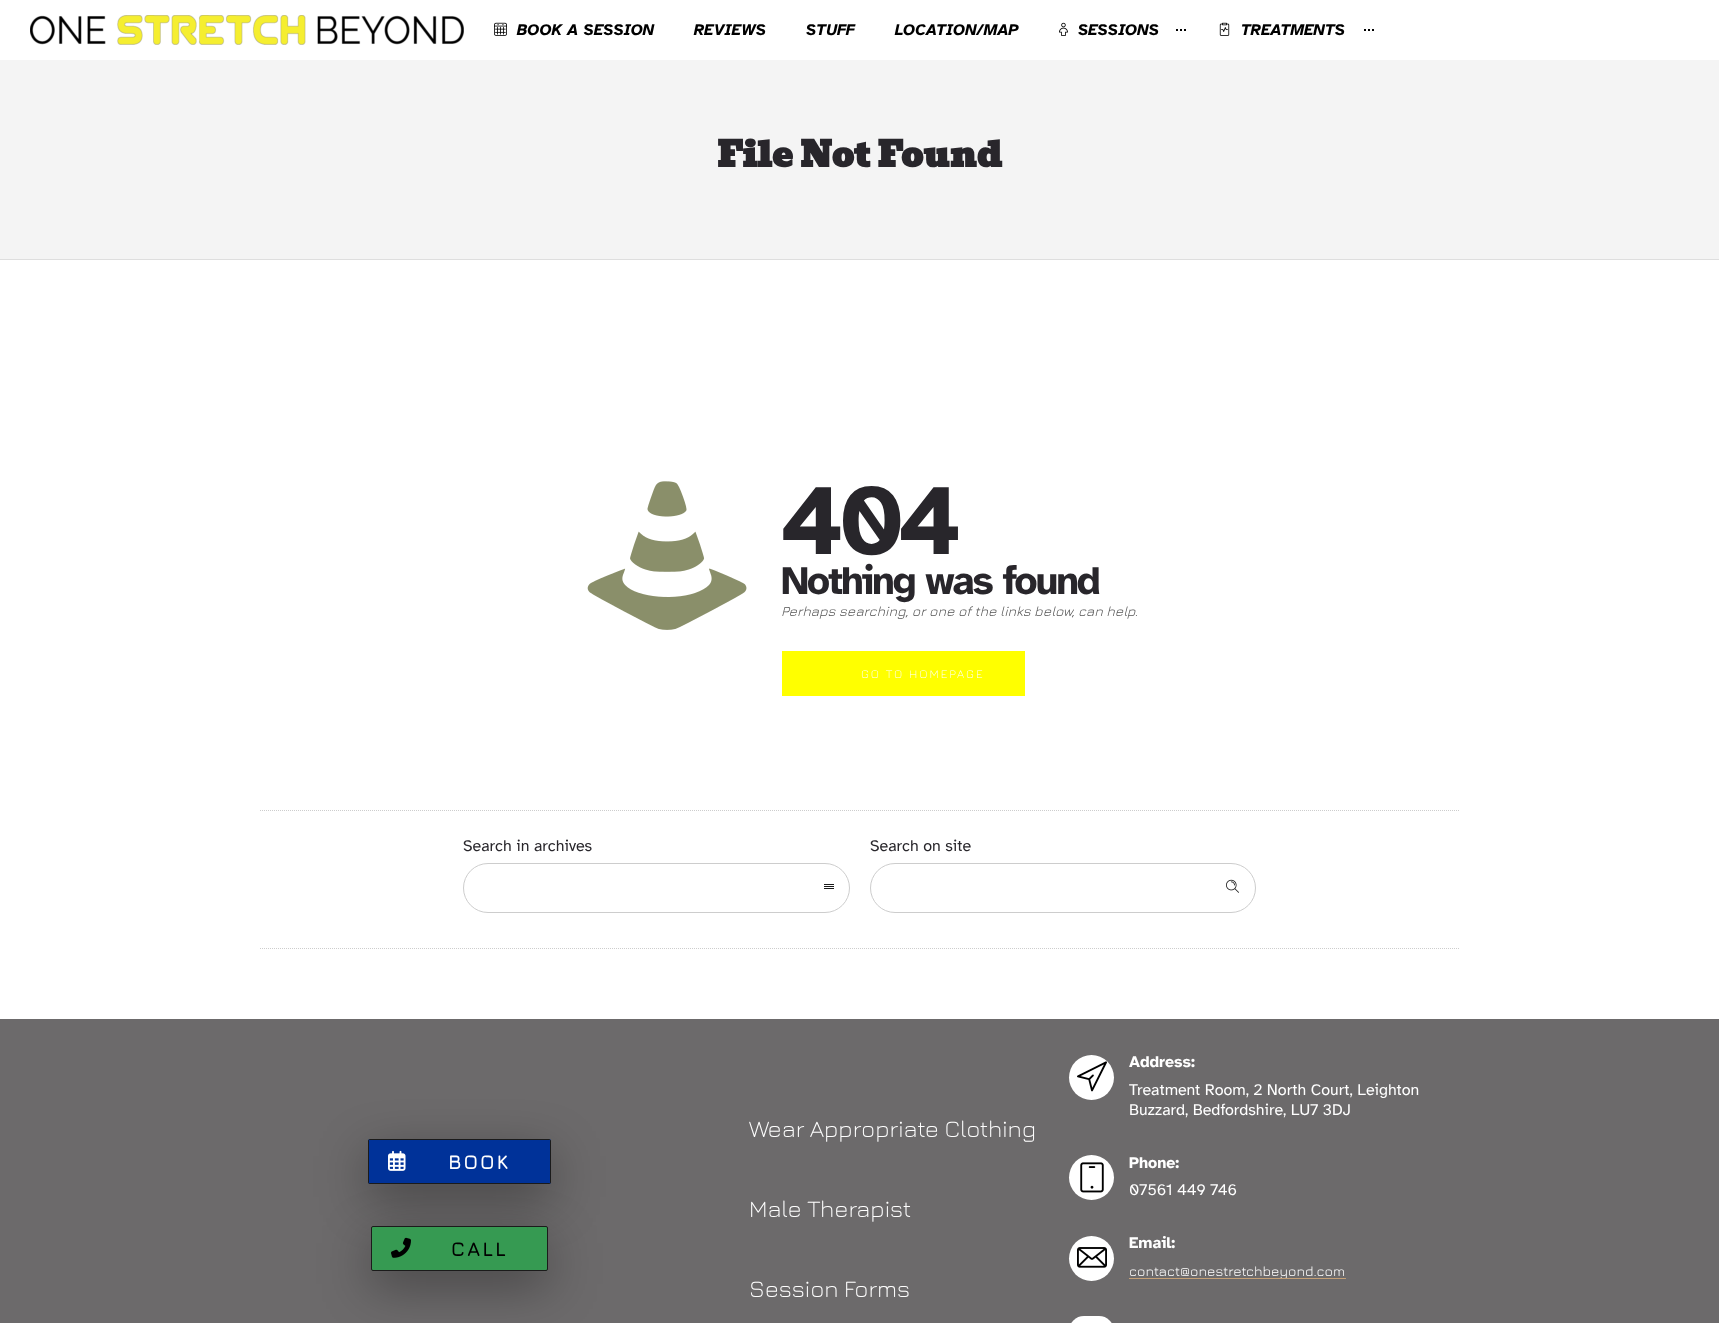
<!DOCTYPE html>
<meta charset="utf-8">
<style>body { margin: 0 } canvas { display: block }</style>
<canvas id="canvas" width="1719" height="1323"></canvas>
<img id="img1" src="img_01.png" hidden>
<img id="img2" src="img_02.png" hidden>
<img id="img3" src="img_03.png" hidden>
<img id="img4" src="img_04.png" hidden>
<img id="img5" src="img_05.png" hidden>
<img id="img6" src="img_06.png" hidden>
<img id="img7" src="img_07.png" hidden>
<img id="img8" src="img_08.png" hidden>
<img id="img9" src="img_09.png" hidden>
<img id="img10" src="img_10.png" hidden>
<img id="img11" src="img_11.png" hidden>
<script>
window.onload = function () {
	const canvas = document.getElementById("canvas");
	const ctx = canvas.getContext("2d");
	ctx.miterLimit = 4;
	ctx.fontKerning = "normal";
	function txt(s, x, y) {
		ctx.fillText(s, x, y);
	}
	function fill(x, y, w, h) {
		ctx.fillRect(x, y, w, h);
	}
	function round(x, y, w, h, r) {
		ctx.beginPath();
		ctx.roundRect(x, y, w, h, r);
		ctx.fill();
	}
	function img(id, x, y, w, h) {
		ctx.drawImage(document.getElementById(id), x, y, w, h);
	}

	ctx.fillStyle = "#FFFFFF";
	fill(0, 0, 1719, 1323);
	img("img1", 30, 15, 434, 30);
	img("img2", 494, 22, 13, 14);
	img("img3", 1059, 22, 9, 14);
	ctx.fillStyle = "#000000";
	fill(1184, 29, 2, 2);
	fill(1180, 29, 2, 2);
	fill(1176, 29, 2, 2);
	img("img4", 1219, 22, 11, 14);
	fill(1372, 29, 2, 2);
	fill(1368, 29, 2, 2);
	fill(1364, 29, 2, 2);
	ctx.fillStyle = "#F4F4F4";
	fill(0, 60, 1719, 199);
	ctx.fillStyle = "#DEDEDE";
	fill(0, 259, 1719, 1);
	img("img5", 587, 481, 160, 149);
	ctx.fillStyle = "#FFFF00";
	fill(782, 651, 243, 45);
	ctx.beginPath();
	ctx.moveTo(260, 810.5);
	ctx.lineTo(1460, 810.5);
	ctx.strokeStyle = "#CDCDCD";
	ctx.setLineDash([1, 1]);
	ctx.stroke();
	ctx.beginPath();
	ctx.moveTo(260, 948.5);
	ctx.lineTo(1460, 948.5);
	ctx.stroke();
	ctx.beginPath();
	ctx.roundRect(463.5, 863.5, 386, 49, 24.5);
	ctx.setLineDash([]);
	ctx.stroke();
	ctx.fillStyle = "#1B1B1B";
	fill(824, 888, 10, 1);
	fill(824, 884, 10, 1);
	fill(824, 886, 10, 1);
	img("img6", 1226, 879, 13, 14);
	ctx.beginPath();
	ctx.roundRect(870.5, 863.5, 385, 49, 24.5);
	ctx.stroke();
	ctx.fillStyle = "#6C6A6B";
	fill(0, 1019, 1719, 304);
	ctx.beginPath();
	ctx.roundRect(368.5, 1139.5, 182, 44, 1.5);
	ctx.stroke();
	ctx.fillStyle = "rgba(0, 0, 0, 0.35)";
	ctx.filter = "blur(25px)";
	ctx.beginPath();
	ctx.roundRect(368, 1154, 183, 45, 2);
	ctx.fill();
	ctx.filter = "none";
	ctx.fillStyle = "#003299";
	round(368, 1139, 183, 45, 2);
	ctx.fillStyle = "#1B1B1B";
	ctx.beginPath();
	ctx.moveTo(370, 1139);
	ctx.bezierCurveTo(369, 1139, 368, 1140, 368, 1141);
	ctx.lineTo(368, 1182);
	ctx.bezierCurveTo(368, 1183, 369, 1184, 370, 1184);
	ctx.lineTo(549, 1184);
	ctx.bezierCurveTo(550, 1184, 551, 1183, 551, 1182);
	ctx.lineTo(551, 1141);
	ctx.bezierCurveTo(551, 1140, 550, 1139, 549, 1139);
	ctx.closePath();
	ctx.moveTo(369, 1140);
	ctx.lineTo(369, 1183);
	ctx.lineTo(550, 1183);
	ctx.lineTo(550, 1140);
	ctx.closePath();
	ctx.fill("evenodd");
	img("img7", 388, 1150, 18, 21);
	ctx.fillStyle = "rgba(0, 0, 0, 0.35)";
	ctx.filter = "blur(25px)";
	ctx.beginPath();
	ctx.roundRect(371, 1241, 177, 45, 2);
	ctx.fill();
	ctx.filter = "none";
	ctx.fillStyle = "#369A52";
	ctx.beginPath();
	ctx.roundRect(371.5, 1226.5, 176, 44, 1.5);
	ctx.fill();
	ctx.strokeStyle = "#1B1B1B";
	ctx.stroke();
	img("img8", 391, 1237, 20, 21);
	ctx.fillStyle = "#FFFFFF";
	ctx.beginPath();
	ctx.arc(1091.5, 1077.5, 22.5, 0, Math.PI * 2);
	ctx.fill();
	img("img9", 1077, 1061, 30, 31);
	ctx.beginPath();
	ctx.arc(1091.5, 1177.5, 22.5, 0, Math.PI * 2);
	ctx.fill();
	img("img10", 1080, 1162, 24, 31);
	ctx.beginPath();
	ctx.arc(1091.5, 1258.5, 22.5, 0, Math.PI * 2);
	ctx.fill();
	img("img11", 1077, 1247, 30, 21);
	round(1069, 1316, 45, 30, 22.5);
	ctx.font = "italic bold 16px Atkinson Hyperlegible";
	ctx.fillStyle = "#000000";
	txt("BOOK A SESSION", 517, 35);
	txt("REVIEWS", 694, 35);
	txt("STUFF", 806, 35);
	txt("LOCATION/MAP", 895, 35);
	txt("SESSIONS", 1078, 35);
	txt("TREATMENTS", 1241, 35);
	ctx.font = "bold 35px Bevan";
	ctx.fillStyle = "#28262B";
	txt("File Not Found", 717, 167);
	ctx.letterSpacing = "-5px";
	ctx.font = "bold 100px Atkinson Hyperlegible";
	txt("404", 781, 554);
	ctx.letterSpacing = "-2px";
	ctx.font = "bold 40px Atkinson Hyperlegible";
	txt("Nothing was found", 781, 594);
	ctx.letterSpacing = "0px";
	ctx.font = "italic 14px Jura";
	ctx.fillStyle = "#565656";
	txt("Perhaps searching, or one of the links below, can help.", 781, 616);
	ctx.letterSpacing = "2px";
	ctx.font = "300 12px Jura";
	ctx.fillStyle = "#FFFFFF";
	txt("GO TO HOMEPAGE", 861, 678);
	ctx.letterSpacing = "0px";
	ctx.font = "16px Atkinson Hyperlegible";
	ctx.fillStyle = "#28262B";
	txt("Search in archives", 463, 851);
	txt("Search on site", 870, 851);
	ctx.letterSpacing = "2px";
	ctx.font = "bold 20px Jura";
	ctx.fillStyle = "#FFFFFF";
	txt("BOOK", 448, 1169);
	ctx.fillStyle = "#000000";
	txt("CALL", 451, 1256);
	ctx.letterSpacing = "0px";
	ctx.font = "300 24px Jura";
	ctx.fillStyle = "#FFFFFF";
	txt("Wear Appropriate Clothing", 749, 1137);
	txt("Male Therapist", 749, 1217);
	txt("Session Forms", 749, 1297);
	ctx.font = "bold 16px Atkinson Hyperlegible";
	txt("Address:", 1129, 1067);
	ctx.font = "16px Atkinson Hyperlegible";
	txt("Treatment Room, 2 North Court, Leighton", 1129, 1095);
	txt("Buzzard, Bedfordshire, LU7 3DJ", 1129, 1115);
	ctx.font = "bold 16px Atkinson Hyperlegible";
	txt("Phone:", 1129, 1168);
	ctx.font = "16px Atkinson Hyperlegible";
	txt("07561 449 746", 1129, 1195);
	ctx.font = "bold 16px Atkinson Hyperlegible";
	txt("Email:", 1129, 1248);
	ctx.font = "14px Jura";
	txt("contact@onestretchbeyond.com", 1129, 1276);
	ctx.fillStyle = "#C39F76";
	fill(1129, 1278, 217, 1);
};
</script>
